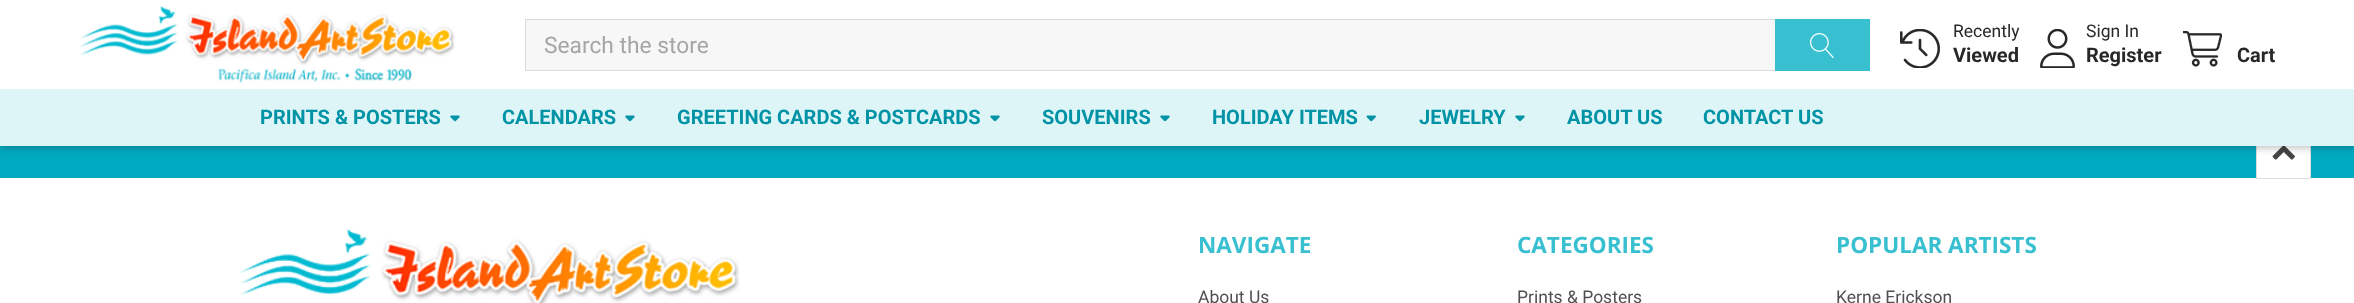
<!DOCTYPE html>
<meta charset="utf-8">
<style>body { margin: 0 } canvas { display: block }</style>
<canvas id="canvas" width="2354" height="303"></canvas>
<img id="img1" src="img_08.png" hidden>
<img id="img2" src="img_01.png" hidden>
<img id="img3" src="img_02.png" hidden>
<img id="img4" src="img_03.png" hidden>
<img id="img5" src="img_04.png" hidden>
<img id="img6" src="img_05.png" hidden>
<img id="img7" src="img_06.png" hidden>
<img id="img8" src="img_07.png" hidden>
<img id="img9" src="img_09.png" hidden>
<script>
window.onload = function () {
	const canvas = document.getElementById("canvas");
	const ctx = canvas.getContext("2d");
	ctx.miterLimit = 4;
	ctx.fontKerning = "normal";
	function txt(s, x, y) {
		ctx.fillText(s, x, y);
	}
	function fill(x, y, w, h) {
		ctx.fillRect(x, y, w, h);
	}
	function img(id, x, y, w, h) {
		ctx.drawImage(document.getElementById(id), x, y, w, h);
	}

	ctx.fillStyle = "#FFFFFF";
	fill(0, 0, 2354, 303);
	ctx.fillStyle = "#00AAC0";
	fill(0, 146, 2354, 32);
	ctx.fillStyle = "#FFFFFF";
	fill(2257, 146, 53, 32);
	ctx.strokeStyle = "#DCDCDC";
	ctx.strokeRect(2256.5, 124.5, 54, 54);
	img("img1", 2272, 146, 23, 14);
	ctx.fillStyle = "rgba(0, 0, 0, 0.2)";
	ctx.filter = "blur(3px)";
	ctx.beginPath();
	ctx.rect(0, 3, 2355, 146);
	ctx.fill();
	ctx.filter = "none";
	ctx.fillStyle = "#FFFFFF";
	fill(0, 0, 2354, 89);
	img("img2", 80, 6, 375, 78);
	ctx.fillStyle = "#F7F7F7";
	fill(526, 20, 1249, 50);
	ctx.strokeStyle = "#DBDBDB";
	ctx.strokeRect(525.5, 19.5, 1344, 51);
	ctx.fillStyle = "#38C0D0";
	fill(1775, 19, 95, 52);
	img("img3", 1810, 33, 24, 25);
	img("img4", 1900, 29, 40, 39);
	img("img5", 2040, 29, 35, 39);
	img("img6", 2183, 30, 39, 37);
	ctx.fillStyle = "#DEF5F7";
	fill(0, 89, 2354, 57);
	img("img7", 450, 115, 10, 7);
	img("img7", 625, 115, 10, 7);
	img("img7", 990, 115, 10, 7);
	img("img7", 1160, 115, 10, 7);
	img("img8", 1366, 115, 10, 7);
	img("img7", 1515, 115, 10, 7);
	img("img9", 240, 229, 500, 74);
	ctx.font = "22.75px Roboto";
	ctx.fillStyle = "#A5A5A5";
	txt("Search the store", 544, 53);
	ctx.font = "17.5px Roboto";
	ctx.fillStyle = "#282828";
	txt("Recently", 1953, 37);
	ctx.font = "bold 20px Roboto";
	txt("Viewed", 1953, 62);
	ctx.font = "17.5px Roboto";
	txt("Sign In", 2086, 37);
	ctx.font = "bold 20px Roboto";
	txt("Register", 2086, 62);
	txt("Cart", 2237, 62);
	ctx.fillStyle = "#0093A5";
	txt("PRINTS & POSTERS", 260, 124);
	txt("CALENDARS", 502, 124);
	txt("GREETING CARDS & POSTCARDS", 677, 124);
	txt("SOUVENIRS", 1042, 124);
	txt("HOLIDAY ITEMS", 1212, 124);
	txt("JEWELRY", 1419, 124);
	txt("ABOUT US", 1567, 124);
	txt("CONTACT US", 1703, 124);
	ctx.font = "bold 22.5px Open Sans";
	ctx.fillStyle = "#38C0D0";
	txt("NAVIGATE", 1198, 253);
	ctx.font = "17.5px Roboto";
	ctx.fillStyle = "#505050";
	txt("About Us", 1198, 303);
	ctx.font = "bold 22.5px Open Sans";
	ctx.fillStyle = "#38C0D0";
	txt("CATEGORIES", 1517, 253);
	ctx.font = "17.5px Roboto";
	ctx.fillStyle = "#505050";
	txt("Prints & Posters", 1517, 303);
	ctx.font = "bold 22.5px Open Sans";
	ctx.fillStyle = "#38C0D0";
	txt("POPULAR ARTISTS", 1836, 253);
	ctx.font = "17.5px Roboto";
	ctx.fillStyle = "#505050";
	txt("Kerne Erickson", 1836, 303);
};
</script>
